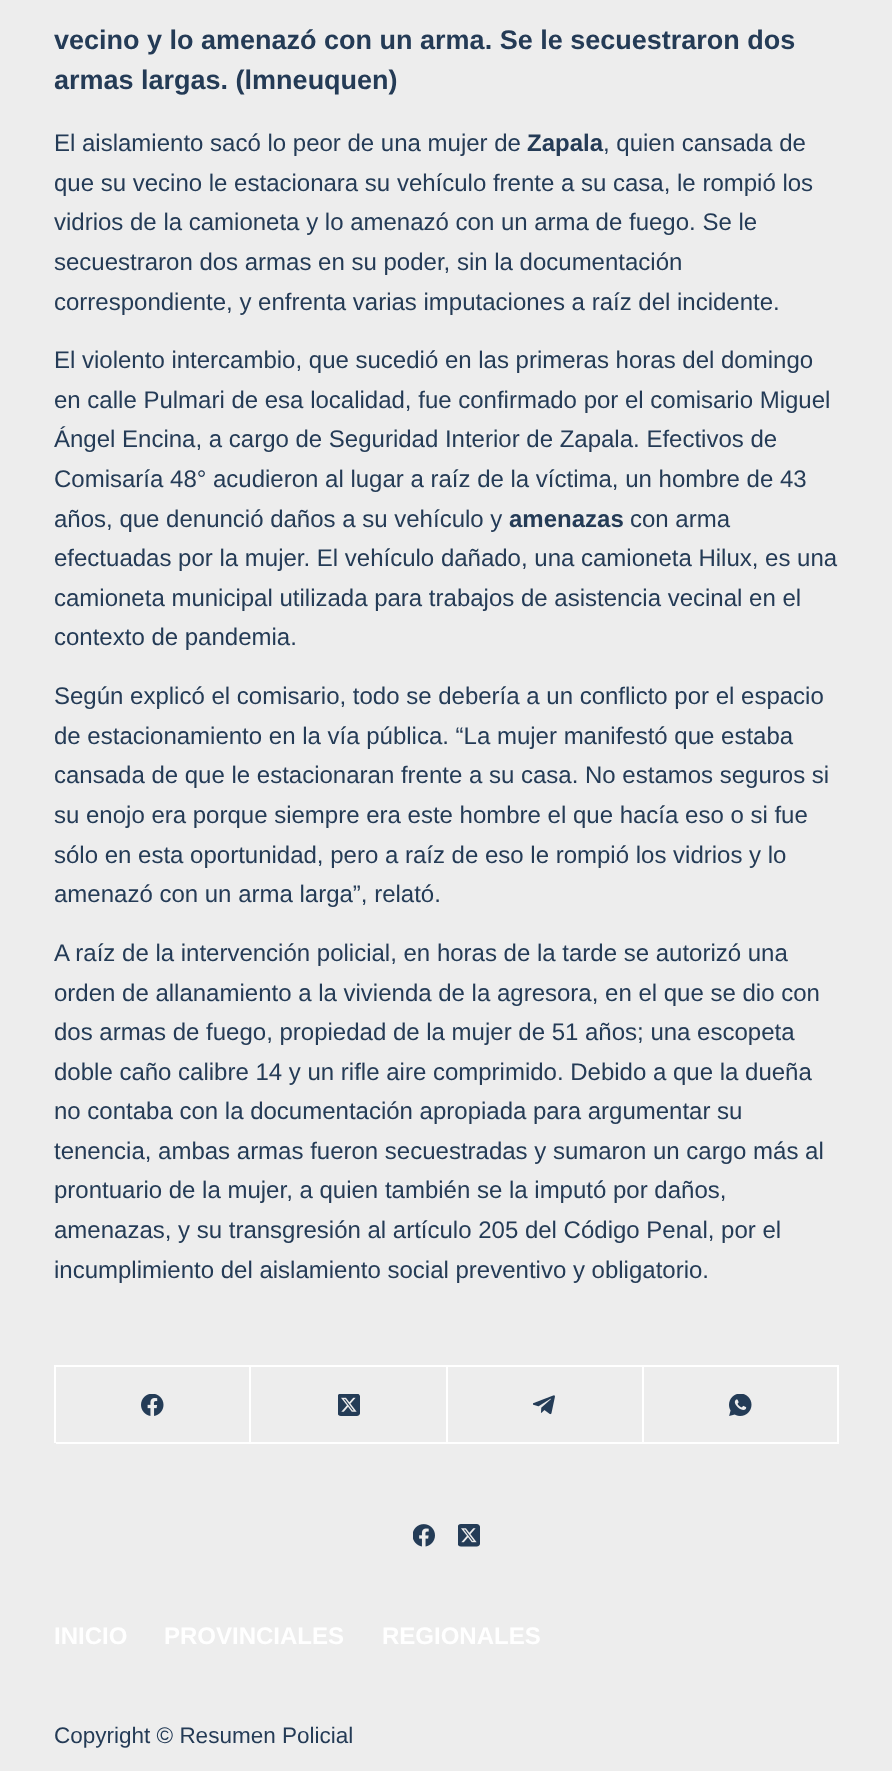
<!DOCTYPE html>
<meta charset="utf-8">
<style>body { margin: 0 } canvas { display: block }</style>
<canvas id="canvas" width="892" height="1771"></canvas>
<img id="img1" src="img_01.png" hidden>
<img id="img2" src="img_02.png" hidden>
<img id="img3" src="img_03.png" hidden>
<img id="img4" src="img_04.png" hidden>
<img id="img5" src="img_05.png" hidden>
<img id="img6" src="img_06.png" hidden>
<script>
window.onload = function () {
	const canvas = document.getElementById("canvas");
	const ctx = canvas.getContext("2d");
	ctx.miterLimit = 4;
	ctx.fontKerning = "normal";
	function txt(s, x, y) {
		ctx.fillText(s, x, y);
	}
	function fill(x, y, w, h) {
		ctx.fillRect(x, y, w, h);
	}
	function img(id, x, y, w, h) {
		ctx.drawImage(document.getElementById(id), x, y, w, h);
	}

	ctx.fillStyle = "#EDEDED";
	fill(0, 0, 892, 1771);
	ctx.fillStyle = "#FFFFFF";
	fill(54, 1365, 785, 2);
	fill(54, 1365, 2, 78);
	fill(249, 1367, 2, 76);
	fill(56, 1442, 195, 2);
	img("img1", 141, 1394, 23, 22);
	fill(446, 1367, 2, 76);
	fill(251, 1442, 196, 2);
	img("img2", 338, 1394, 22, 22);
	fill(642, 1367, 2, 76);
	fill(447, 1442, 197, 2);
	img("img3", 533, 1395, 22, 20);
	fill(837, 1367, 2, 76);
	fill(644, 1442, 195, 2);
	img("img4", 729, 1394, 23, 22);
	img("img5", 413, 1524, 22, 23);
	img("img6", 458, 1524, 22, 23);
	ctx.font = "bold 27px Liberation Sans";
	ctx.fillStyle = "#243B56";
	txt("vecino y lo amenazó con un arma. Se le secuestraron dos", 54, 49);
	txt("armas largas. (lmneuquen)", 54, 89);
	ctx.font = "24px Liberation Sans";
	txt("El aislamiento sacó lo peor de una mujer de", 54, 151);
	ctx.font = "bold 24px Liberation Sans";
	txt("Zapala", 527, 151);
	ctx.font = "24px Liberation Sans";
	txt(", quien cansada de", 603, 151);
	txt("que su vecino le estacionara su vehículo frente a su casa, le rompió los", 54, 191);
	txt("vidrios de la camioneta y lo amenazó con un arma de fuego. Se le", 54, 230);
	txt("secuestraron dos armas en su poder, sin la documentación", 54, 270);
	txt("correspondiente, y enfrenta varias imputaciones a raíz del incidente.", 54, 310);
	txt("El violento intercambio, que sucedió en las primeras horas del domingo", 54, 368);
	txt("en calle Pulmari de esa localidad, fue confirmado por el comisario Miguel", 54, 408);
	txt("Ángel Encina, a cargo de Seguridad Interior de Zapala. Efectivos de", 54, 447);
	txt("Comisaría 48° acudieron al lugar a raíz de la víctima, un hombre de 43", 54, 487);
	txt("años, que denunció daños a su vehículo y", 54, 527);
	ctx.font = "bold 24px Liberation Sans";
	txt("amenazas", 509, 527);
	ctx.font = "24px Liberation Sans";
	txt("con arma", 630, 527);
	txt("efectuadas por la mujer. El vehículo dañado, una camioneta Hilux, es una", 54, 566);
	txt("camioneta municipal utilizada para trabajos de asistencia vecinal en el", 54, 606);
	txt("contexto de pandemia.", 54, 645);
	txt("Según explicó el comisario, todo se debería a un conflicto por el espacio", 54, 704);
	txt("de estacionamiento en la vía pública. “La mujer manifestó que estaba", 54, 744);
	txt("cansada de que le estacionaran frente a su casa. No estamos seguros si", 54, 783);
	txt("su enojo era porque siempre era este hombre el que hacía eso o si fue", 54, 823);
	txt("sólo en esta oportunidad, pero a raíz de eso le rompió los vidrios y lo", 54, 863);
	txt("amenazó con un arma larga”, relató.", 54, 902);
	txt("A raíz de la intervención policial, en horas de la tarde se autorizó una", 54, 961);
	txt("orden de allanamiento a la vivienda de la agresora, en el que se dio con", 54, 1001);
	txt("dos armas de fuego, propiedad de la mujer de 51 años; una escopeta", 54, 1040);
	txt("doble caño calibre 14 y un rifle aire comprimido. Debido a que la dueña", 54, 1080);
	txt("no contaba con la documentación apropiada para argumentar su", 54, 1119);
	txt("tenencia, ambas armas fueron secuestradas y sumaron un cargo más al", 54, 1159);
	txt("prontuario de la mujer, a quien también se la imputó por daños,", 54, 1198);
	txt("amenazas, y su transgresión al artículo 205 del Código Penal, por el", 54, 1238);
	txt("incumplimiento del aislamiento social preventivo y obligatorio.", 54, 1278);
	ctx.font = "bold 24px Liberation Sans";
	ctx.fillStyle = "#FFFFFF";
	txt("INICIO", 54, 1644);
	txt("PROVINCIALES", 164, 1644);
	txt("REGIONALES", 382, 1644);
	ctx.font = "22.5px Liberation Sans";
	ctx.fillStyle = "#243B56";
	txt("Copyright © Resumen Policial", 54, 1743);
};
</script>
